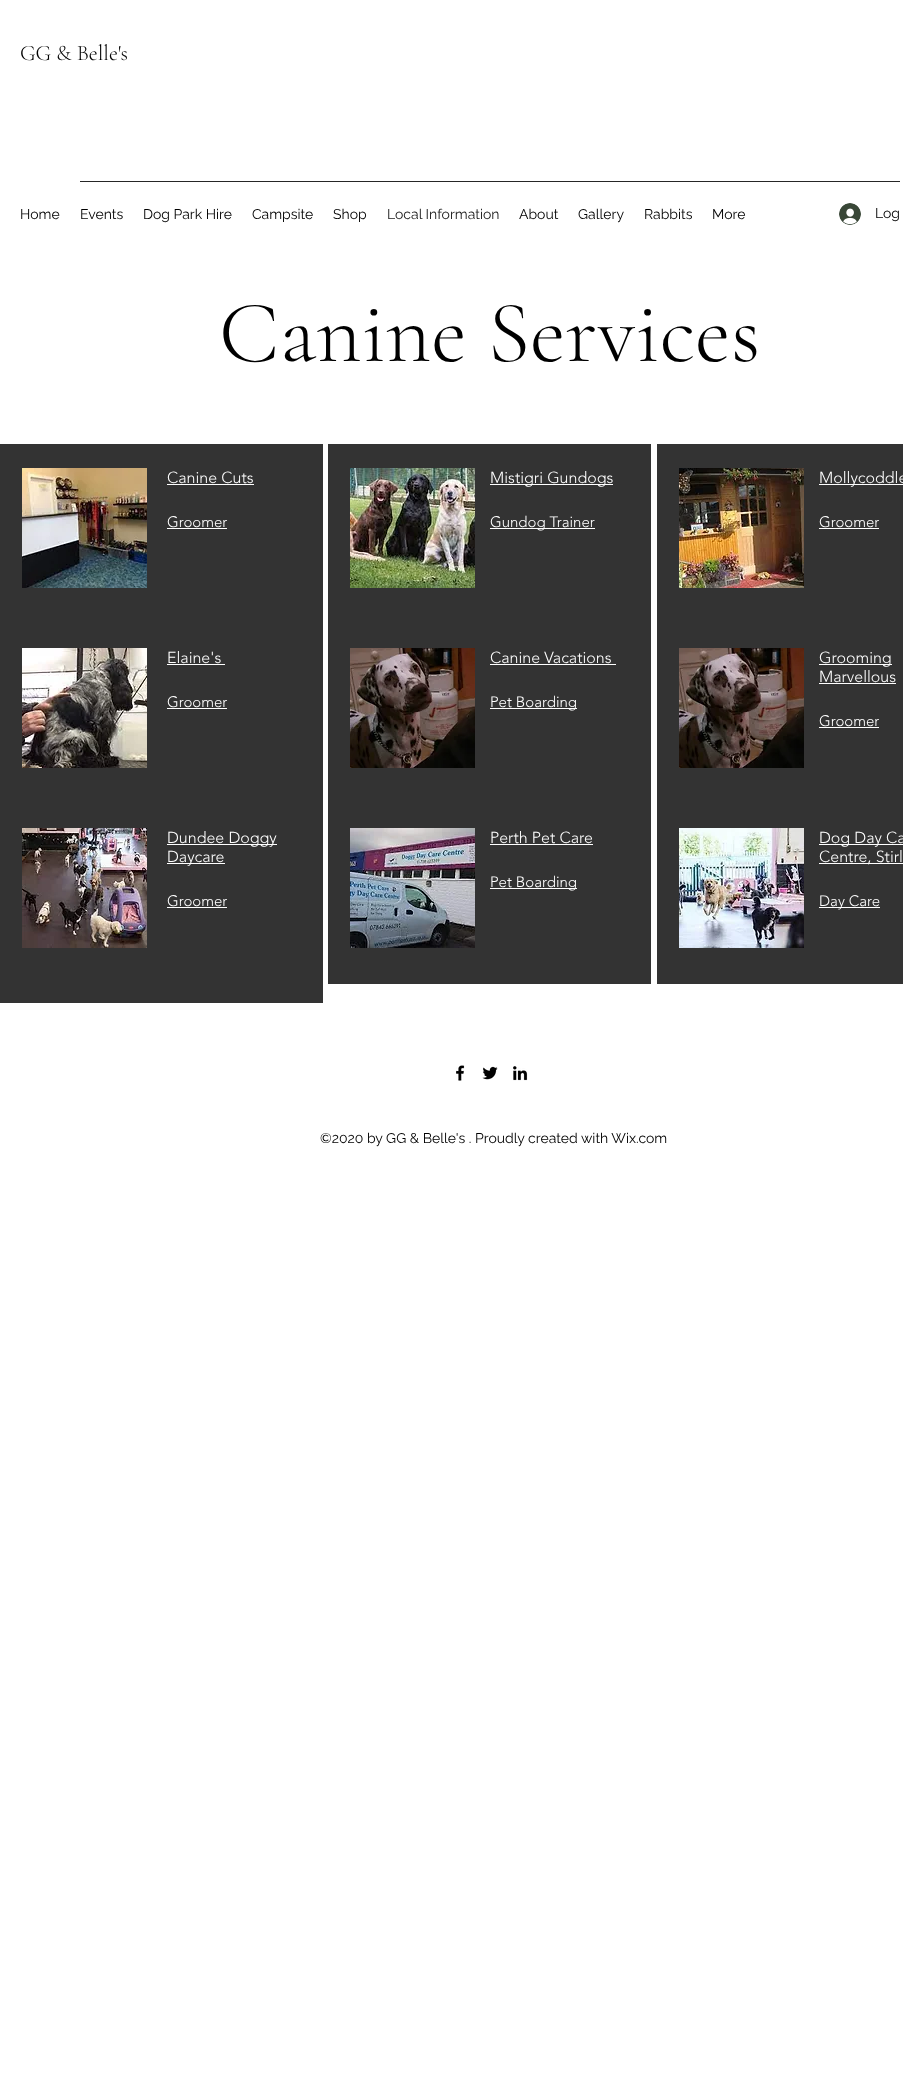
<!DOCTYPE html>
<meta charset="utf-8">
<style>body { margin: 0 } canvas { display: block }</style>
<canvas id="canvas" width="903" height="2091"></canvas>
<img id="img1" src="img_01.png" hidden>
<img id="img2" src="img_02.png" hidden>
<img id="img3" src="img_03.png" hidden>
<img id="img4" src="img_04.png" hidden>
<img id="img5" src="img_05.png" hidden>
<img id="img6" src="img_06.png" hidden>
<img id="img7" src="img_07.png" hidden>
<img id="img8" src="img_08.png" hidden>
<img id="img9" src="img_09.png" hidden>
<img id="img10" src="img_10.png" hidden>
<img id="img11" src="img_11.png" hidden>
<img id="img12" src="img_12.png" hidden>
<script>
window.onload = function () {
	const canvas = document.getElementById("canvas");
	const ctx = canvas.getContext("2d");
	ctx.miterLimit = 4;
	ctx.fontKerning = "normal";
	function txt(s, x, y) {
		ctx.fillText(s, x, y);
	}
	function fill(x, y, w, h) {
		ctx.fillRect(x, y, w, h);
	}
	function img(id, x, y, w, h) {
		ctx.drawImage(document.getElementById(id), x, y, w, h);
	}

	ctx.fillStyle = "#FFFFFF";
	fill(0, 0, 903, 2091);
	ctx.fillStyle = "#262626";
	fill(80, 181, 820, 1);
	img("img1", 839, 203, 22, 22);
	ctx.fillStyle = "#333333";
	fill(0, 444, 323, 559);
	img("img2", 22, 468, 125, 120);
	ctx.fillStyle = "#FFFFFF";
	fill(167, 484, 87, 1);
	fill(167, 528, 60, 1);
	img("img3", 22, 648, 125, 120);
	fill(167, 664, 58, 1);
	fill(167, 708, 60, 1);
	img("img4", 22, 828, 125, 120);
	fill(167, 844, 110, 1);
	fill(167, 863, 58, 1);
	fill(167, 907, 60, 1);
	ctx.fillStyle = "#333333";
	fill(328, 444, 323, 540);
	img("img5", 350, 468, 125, 120);
	ctx.fillStyle = "#FFFFFF";
	fill(490, 484, 123, 1);
	fill(490, 528, 105, 1);
	img("img6", 350, 648, 125, 120);
	fill(490, 664, 126, 1);
	fill(490, 708, 87, 1);
	img("img7", 350, 828, 125, 120);
	fill(490, 844, 103, 1);
	fill(490, 888, 87, 1);
	ctx.fillStyle = "#333333";
	fill(657, 444, 246, 540);
	img("img8", 679, 468, 125, 120);
	ctx.fillStyle = "#FFFFFF";
	fill(819, 484, 84, 1);
	fill(819, 528, 60, 1);
	img("img6", 679, 648, 125, 120);
	fill(819, 664, 73, 1);
	fill(819, 683, 77, 1);
	fill(819, 727, 60, 1);
	img("img9", 679, 828, 125, 120);
	fill(819, 844, 84, 1);
	fill(819, 863, 84, 1);
	fill(819, 907, 61, 1);
	img("img10", 456, 1065, 9, 16);
	img("img11", 482, 1066, 16, 14);
	img("img12", 513, 1066, 15, 15);
	ctx.font = "300 22px Cormorant Garamond";
	ctx.fillStyle = "#000000";
	txt("GG & Belle's", 20, 60);
	ctx.font = "14px Raleway";
	txt("Home", 20, 219);
	txt("Events", 80, 219);
	txt("Dog Park Hire", 143, 219);
	txt("Campsite", 252, 219);
	txt("Shop", 333, 219);
	ctx.fillStyle = "#191919";
	txt("Local Information", 387, 219);
	ctx.fillStyle = "#000000";
	txt("About", 519, 219);
	txt("Gallery", 578, 219);
	txt("Rabbits", 644, 219);
	txt("More", 712, 219);
	txt("Log", 875, 218);
	ctx.font = "300 88px Cormorant Garamond";
	txt("Canine Services", 219, 361);
	ctx.font = "300 16px 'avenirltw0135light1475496'";
	ctx.fillStyle = "#FFFFFF";
	txt("Canine Cuts", 167, 483);
	ctx.font = "300 15px 'avenirltw0135light1475496'";
	txt("Groomer", 167, 527);
	ctx.font = "300 16px 'avenirltw0135light1475496'";
	txt("Elaine's", 167, 663);
	ctx.font = "300 15px 'avenirltw0135light1475496'";
	txt("Groomer", 167, 707);
	ctx.font = "300 16px 'avenirltw0135light1475496'";
	txt("Dundee Doggy", 167, 843);
	txt("Daycare", 167, 862);
	ctx.font = "300 15px 'avenirltw0135light1475496'";
	txt("Groomer", 167, 906);
	ctx.font = "300 16px 'avenirltw0135light1475496'";
	txt("Mistigri Gundogs", 490, 483);
	ctx.font = "300 15px 'avenirltw0135light1475496'";
	txt("Gundog Trainer", 490, 527);
	ctx.font = "300 16px 'avenirltw0135light1475496'";
	txt("Canine Vacations", 490, 663);
	ctx.font = "300 15px 'avenirltw0135light1475496'";
	txt("Pet Boarding", 490, 707);
	ctx.font = "300 16px 'avenirltw0135light1475496'";
	txt("Perth Pet Care", 490, 843);
	ctx.font = "300 15px 'avenirltw0135light1475496'";
	txt("Pet Boarding", 490, 887);
	ctx.font = "300 16px 'avenirltw0135light1475496'";
	txt("Mollycoddle", 819, 483);
	ctx.font = "300 15px 'avenirltw0135light1475496'";
	txt("Groomer", 819, 527);
	ctx.font = "300 16px 'avenirltw0135light1475496'";
	txt("Grooming", 819, 663);
	txt("Marvellous", 819, 682);
	ctx.font = "300 15px 'avenirltw0135light1475496'";
	txt("Groomer", 819, 726);
	ctx.font = "300 16px 'avenirltw0135light1475496'";
	txt("Dog Day Ca", 819, 843);
	txt("Centre, Stirl", 819, 862);
	ctx.font = "300 15px 'avenirltw0135light1475496'";
	txt("Day Care", 819, 906);
	ctx.font = "14px Raleway";
	ctx.fillStyle = "#000000";
	txt("©2020 by GG & Belle's . Proudly created with Wix.com", 320, 1143);
};
</script>
